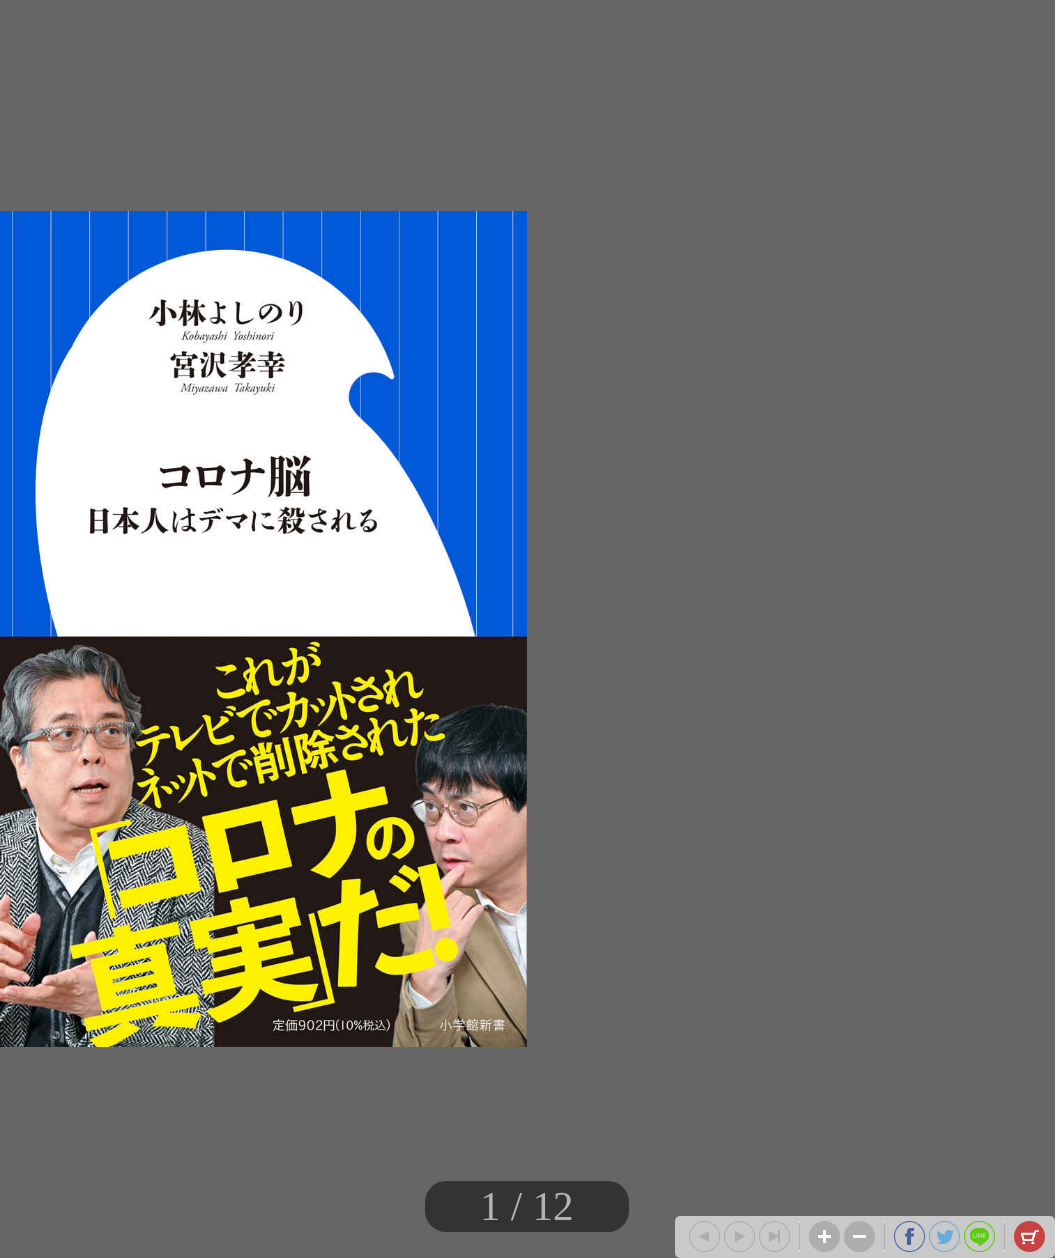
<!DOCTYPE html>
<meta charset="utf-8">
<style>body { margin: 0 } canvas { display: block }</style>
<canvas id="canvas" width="1055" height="1258"></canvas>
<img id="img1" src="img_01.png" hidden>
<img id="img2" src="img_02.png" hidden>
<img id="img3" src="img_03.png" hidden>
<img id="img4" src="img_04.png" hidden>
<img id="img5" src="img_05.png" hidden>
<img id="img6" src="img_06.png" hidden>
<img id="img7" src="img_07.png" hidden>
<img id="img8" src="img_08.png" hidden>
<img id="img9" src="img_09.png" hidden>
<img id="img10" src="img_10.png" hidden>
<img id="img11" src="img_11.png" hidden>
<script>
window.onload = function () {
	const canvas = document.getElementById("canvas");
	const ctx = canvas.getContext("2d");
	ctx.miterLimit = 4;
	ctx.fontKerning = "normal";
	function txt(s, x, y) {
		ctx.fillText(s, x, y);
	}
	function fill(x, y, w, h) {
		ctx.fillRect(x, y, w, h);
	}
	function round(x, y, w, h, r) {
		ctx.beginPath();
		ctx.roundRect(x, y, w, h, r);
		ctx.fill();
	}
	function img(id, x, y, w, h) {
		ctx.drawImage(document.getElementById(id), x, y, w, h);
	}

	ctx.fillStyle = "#666666";
	fill(0, 0, 1055, 1258);
	img("img1", 0, 211, 527, 836);
	ctx.fillStyle = "#333333";
	round(425, 1181, 204, 51, 21);
	ctx.fillStyle = "#C9C9C9";
	round(675, 1216, 380, 42, 5);
	img("img2", 689, 1221, 31, 31);
	img("img3", 724, 1221, 31, 31);
	img("img4", 759, 1221, 31, 31);
	img("img5", 799, 1221, 1, 31);
	img("img6", 809, 1221, 31, 31);
	img("img7", 844, 1221, 31, 31);
	img("img5", 884, 1221, 1, 31);
	img("img8", 894, 1221, 31, 31);
	img("img9", 929, 1221, 31, 31);
	img("img10", 964, 1221, 31, 31);
	img("img5", 1004, 1221, 1, 31);
	img("img11", 1014, 1221, 31, 31);
	ctx.font = "41px Liberation Serif";
	ctx.fillStyle = "#B3B3B3";
	txt("1 / 12", 480, 1220);
};
</script>
